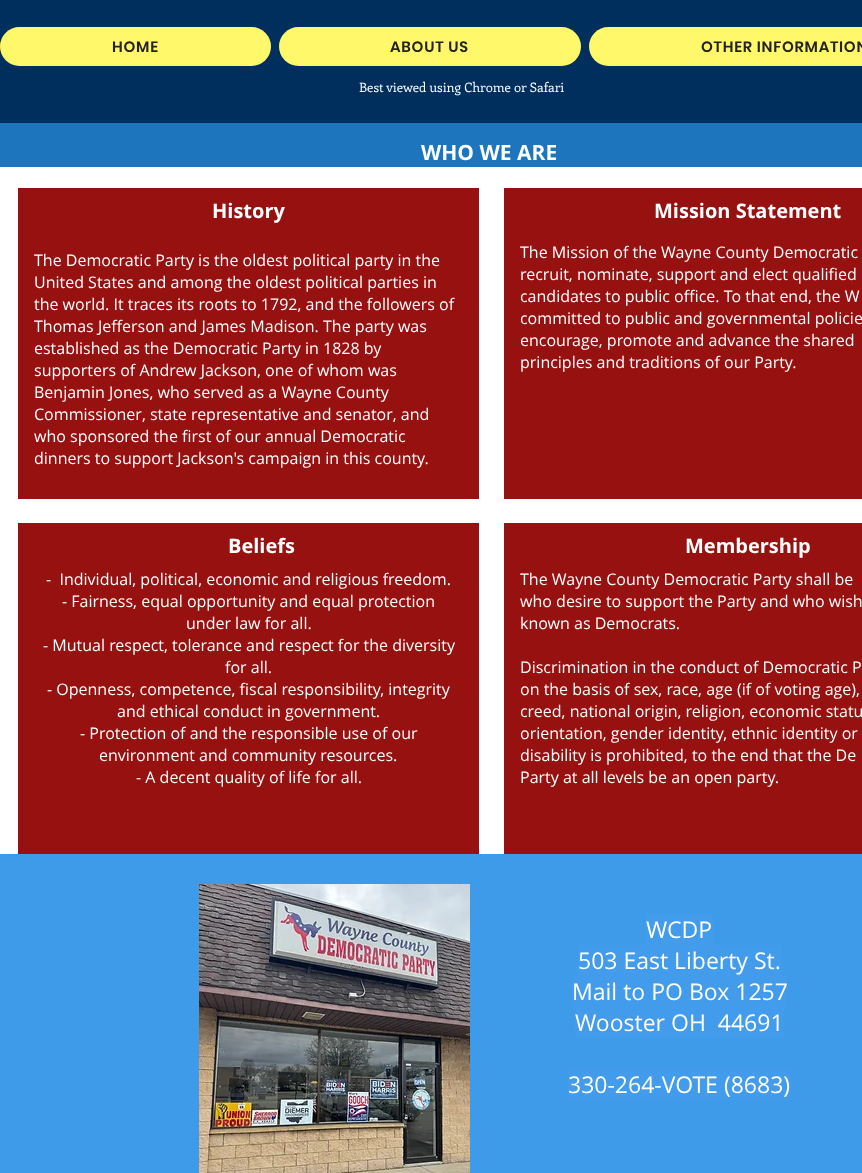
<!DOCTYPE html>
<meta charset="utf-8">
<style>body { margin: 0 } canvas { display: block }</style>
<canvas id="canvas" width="862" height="1173"></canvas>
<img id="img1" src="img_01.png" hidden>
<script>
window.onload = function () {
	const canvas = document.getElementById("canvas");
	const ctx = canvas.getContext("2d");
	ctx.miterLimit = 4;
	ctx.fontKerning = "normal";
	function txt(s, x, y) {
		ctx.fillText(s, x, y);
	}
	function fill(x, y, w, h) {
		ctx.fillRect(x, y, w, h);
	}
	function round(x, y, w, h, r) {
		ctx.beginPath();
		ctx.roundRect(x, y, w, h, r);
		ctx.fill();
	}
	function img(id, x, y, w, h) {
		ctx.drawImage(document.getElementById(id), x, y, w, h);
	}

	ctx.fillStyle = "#FFFFFF";
	fill(0, 0, 862, 1173);
	ctx.fillStyle = "#002E5D";
	fill(0, 0, 862, 123);
	ctx.fillStyle = "#FFF86B";
	round(0, 27, 271, 39, 19.5);
	round(279, 27, 302, 39, 19.5);
	round(589, 27, 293, 39, 19.5);
	ctx.fillStyle = "#1C75BD";
	fill(0, 123, 862, 44);
	ctx.fillStyle = "#971111";
	fill(18, 188, 461, 311);
	fill(504, 188, 358, 311);
	fill(18, 523, 461, 331);
	fill(504, 523, 358, 331);
	ctx.fillStyle = "#3D9BE9";
	fill(0, 854, 862, 319);
	img("img1", 199, 884, 271, 289);
	ctx.fillStyle = "#429CEB";
	fill(646, 914, 67, 31);
	fill(578, 945, 203, 31);
	fill(572, 976, 215, 31);
	fill(575, 1007, 209, 31);
	fill(568, 1069, 223, 31);
	ctx.letterSpacing = "0.75px";
	ctx.font = "600 15px Poppins";
	ctx.fillStyle = "#242323";
	txt("HOME", 112, 52);
	txt("ABOUT US", 390, 52);
	txt("OTHER INFORMATION", 701, 52);
	ctx.letterSpacing = "0px";
	ctx.font = "13px Enriqueta";
	ctx.fillStyle = "#FFFFFF";
	txt("Best viewed using Chrome or Safari", 359, 92);
	ctx.font = "bold 21px Open Sans";
	txt("WHO WE ARE", 421, 160);
	ctx.font = "bold 20px Open Sans";
	txt("History", 212, 218);
	ctx.font = "16px Open Sans";
	txt("The Democratic Party is the oldest political party in the", 34, 266);
	txt("United States and among the oldest political parties in", 34, 288);
	txt("the world. It traces its roots to 1792, and the followers of", 34, 310);
	txt("Thomas Jefferson and James Madison. The party was", 34, 332);
	txt("established as the Democratic Party in 1828 by", 34, 354);
	txt("supporters of Andrew Jackson, one of whom was", 34, 376);
	txt("Benjamin Jones, who served as a Wayne County", 34, 398);
	txt("Commissioner, state representative and senator, and", 34, 420);
	txt("who sponsored the first of our annual Democratic", 34, 442);
	txt("dinners to support Jackson's campaign in this county.", 34, 464);
	ctx.font = "bold 20px Open Sans";
	txt("Mission Statement", 654, 218);
	ctx.font = "16px Open Sans";
	txt("The Mission of the Wayne County Democratic", 520, 258);
	txt("recruit, nominate, support and elect qualified", 520, 280);
	txt("candidates to public office. To that end, the W", 520, 302);
	txt("committed to public and governmental policie", 520, 324);
	txt("encourage, promote and advance the shared", 520, 346);
	txt("principles and traditions of our Party.", 520, 368);
	ctx.font = "bold 20px Open Sans";
	txt("Beliefs", 228, 553);
	ctx.font = "16px Open Sans";
	txt("-  Individual, political, economic and religious freedom.", 46, 585);
	txt("- Fairness, equal opportunity and equal protection", 62, 607);
	txt("under law for all.", 186, 629);
	txt("- Mutual respect, tolerance and respect for the diversity", 43, 651);
	txt("for all.", 225, 673);
	txt("- Openness, competence, fiscal responsibility, integrity", 47, 695);
	txt("and ethical conduct in government.", 117, 717);
	txt("- Protection of and the responsible use of our", 80, 739);
	txt("environment and community resources.", 99, 761);
	txt("- A decent quality of life for all.", 136, 783);
	ctx.font = "bold 20px Open Sans";
	txt("Membership", 685, 553);
	ctx.font = "16px Open Sans";
	txt("The Wayne County Democratic Party shall be", 520, 585);
	txt("who desire to support the Party and who wish", 520, 607);
	txt("known as Democrats.", 520, 629);
	txt("Discrimination in the conduct of Democratic P", 520, 673);
	txt("on the basis of sex, race, age (if of voting age),", 520, 695);
	txt("creed, national origin, religion, economic statu", 520, 717);
	txt("orientation, gender identity, ethnic identity or", 520, 739);
	txt("disability is prohibited, to the end that the De", 520, 761);
	txt("Party at all levels be an open party.", 520, 783);
	ctx.font = "23px Open Sans";
	txt("WCDP", 646, 938);
	txt("503 East Liberty St.", 578, 969);
	txt("Mail to PO Box 1257", 572, 1000);
	txt("Wooster OH  44691", 575, 1031);
	txt("330-264-VOTE (8683)", 568, 1093);
};
</script>
